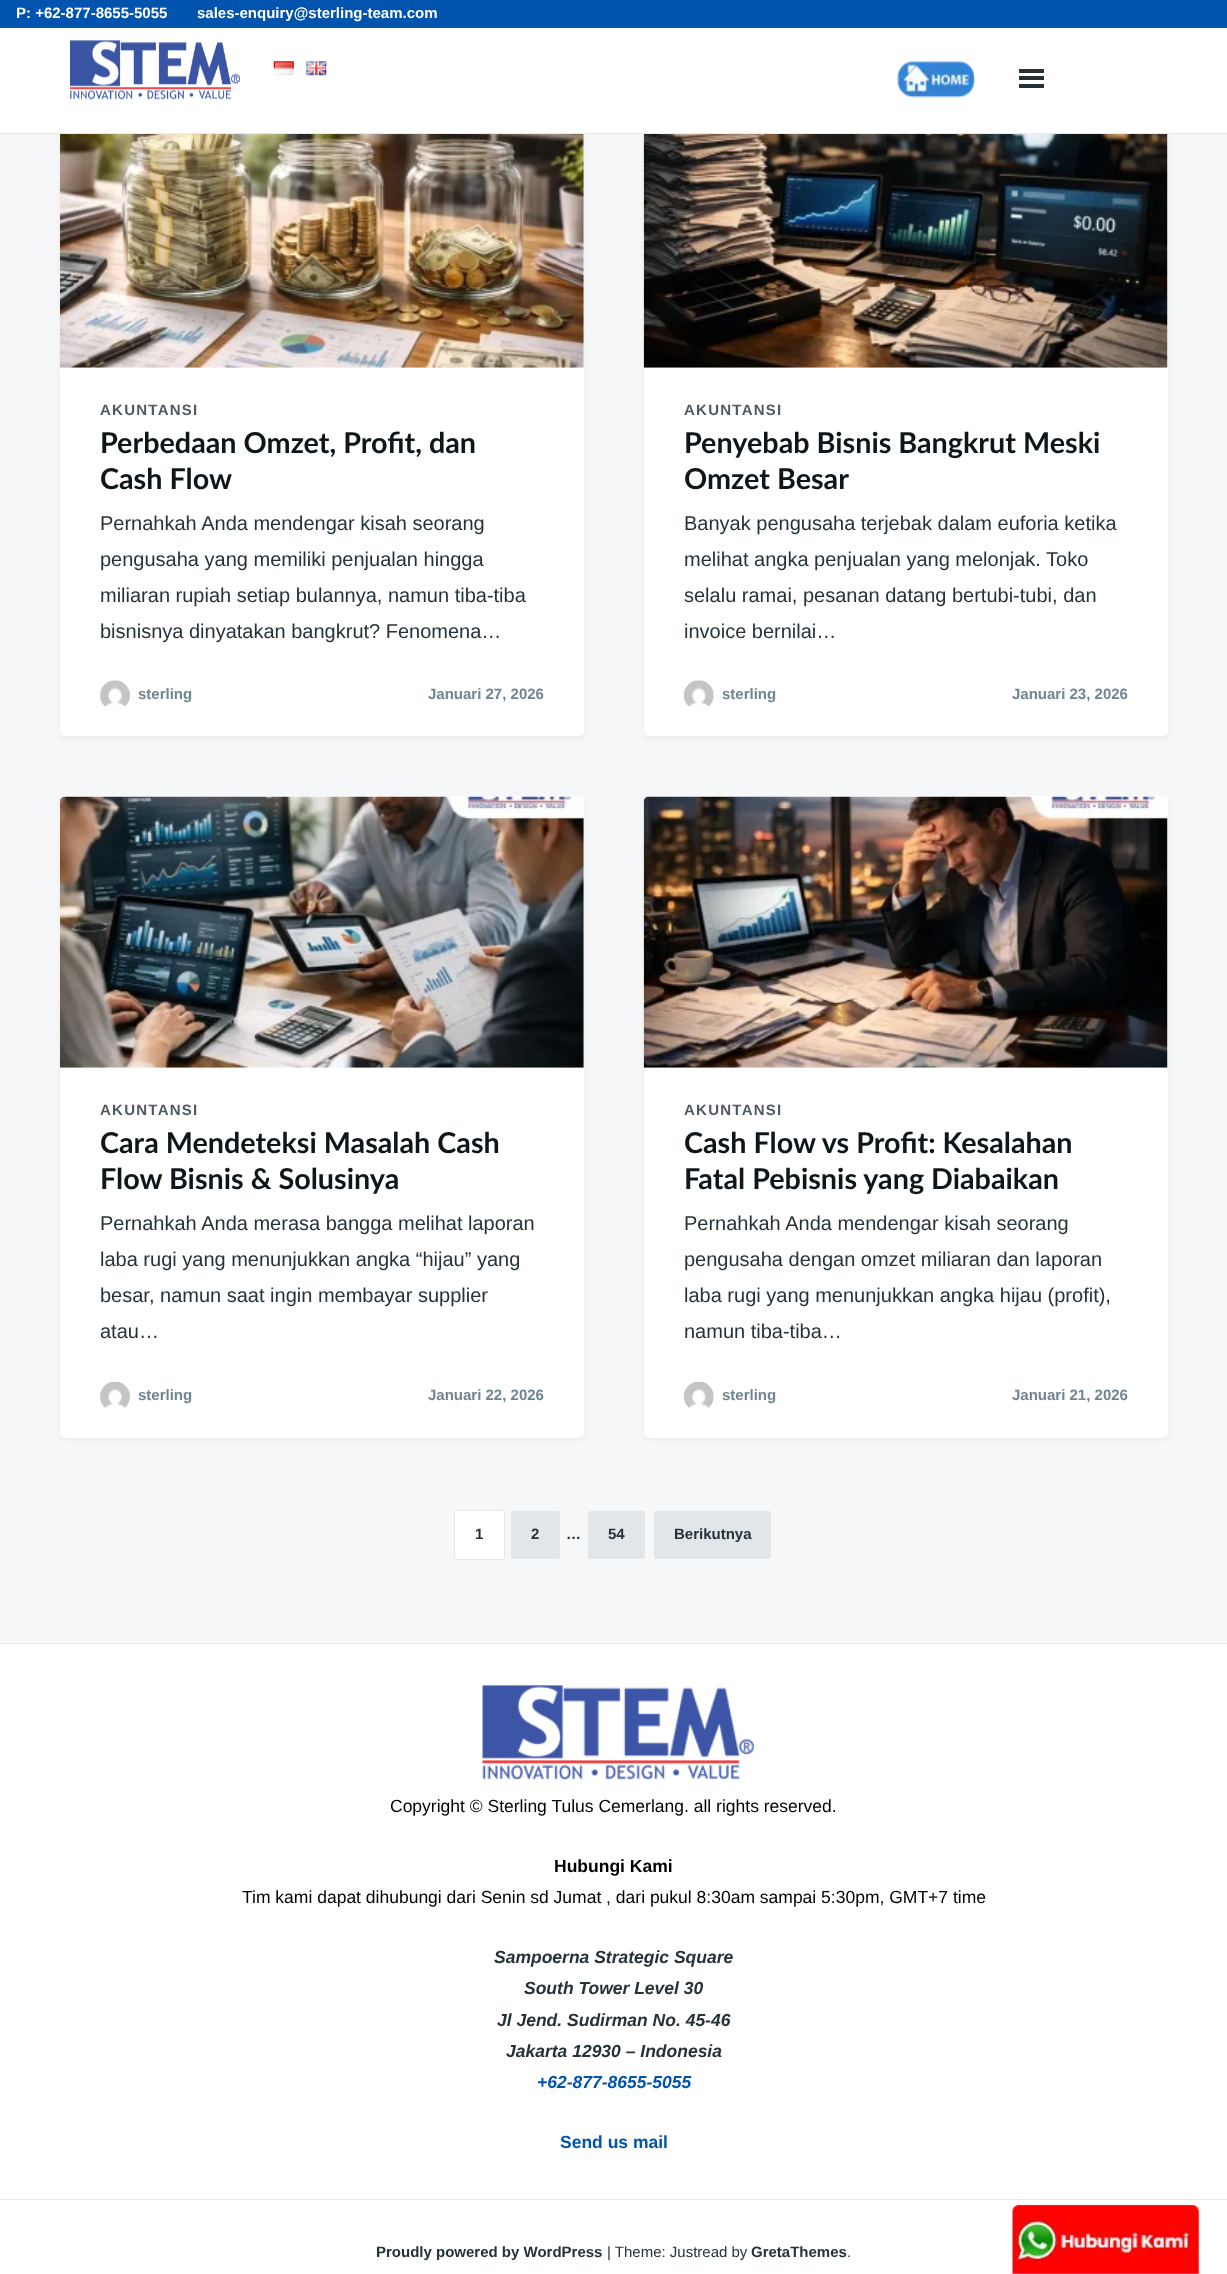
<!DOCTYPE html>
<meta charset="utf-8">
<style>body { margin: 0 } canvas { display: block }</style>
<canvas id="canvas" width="1227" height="2274"></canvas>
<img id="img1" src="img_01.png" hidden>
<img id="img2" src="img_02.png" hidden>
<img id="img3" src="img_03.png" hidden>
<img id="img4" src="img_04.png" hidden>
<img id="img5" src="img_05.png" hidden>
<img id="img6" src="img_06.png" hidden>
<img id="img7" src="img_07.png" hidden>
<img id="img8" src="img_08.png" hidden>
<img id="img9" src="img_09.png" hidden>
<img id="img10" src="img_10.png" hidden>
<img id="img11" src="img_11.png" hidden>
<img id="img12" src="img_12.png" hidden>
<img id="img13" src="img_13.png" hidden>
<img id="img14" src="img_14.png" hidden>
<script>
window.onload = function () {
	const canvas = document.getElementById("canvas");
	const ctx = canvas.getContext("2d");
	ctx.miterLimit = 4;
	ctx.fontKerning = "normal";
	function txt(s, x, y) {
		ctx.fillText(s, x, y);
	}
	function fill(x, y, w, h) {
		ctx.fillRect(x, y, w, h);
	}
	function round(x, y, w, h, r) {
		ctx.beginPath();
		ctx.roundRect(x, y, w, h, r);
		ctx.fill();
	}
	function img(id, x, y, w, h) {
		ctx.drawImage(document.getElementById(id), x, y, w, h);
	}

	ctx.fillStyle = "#F5F7F8";
	fill(0, 0, 1227, 2274);
	ctx.fillStyle = "#0054AD";
	fill(0, 0, 1227, 28);
	ctx.fillStyle = "rgba(38, 50, 56, 0.05)";
	ctx.filter = "blur(2.5px)";
	ctx.beginPath();
	ctx.roundRect(60, 99, 524, 640, 5);
	ctx.fill();
	ctx.filter = "none";
	ctx.fillStyle = "#FFFFFF";
	round(60, 96, 524, 640, 5);
	ctx.fillStyle = "rgba(38, 50, 56, 0.05)";
	ctx.filter = "blur(2.5px)";
	ctx.beginPath();
	ctx.roundRect(644, 99, 524, 640, 5);
	ctx.fill();
	ctx.filter = "none";
	ctx.fillStyle = "#FFFFFF";
	round(644, 96, 524, 640, 5);
	fill(0, 28, 1227, 105);
	ctx.fillStyle = "#E9EBEB";
	fill(0, 133, 1227, 1);
	img("img1", 70, 40, 170, 60);
	img("img2", 273, 61, 21, 15);
	img("img3", 306, 61, 21, 15);
	img("img4", 897, 60, 79, 38);
	ctx.fillStyle = "#263238";
	fill(1019, 69, 25, 4);
	fill(1019, 76, 25, 4);
	fill(1019, 84, 25, 4);
	img("img5", 60, 134, 524, 234);
	img("img6", 100, 680, 30, 28);
	img("img7", 643, 134, 525, 234);
	img("img8", 684, 680, 30, 28);
	ctx.fillStyle = "rgba(38, 50, 56, 0.05)";
	ctx.filter = "blur(2.5px)";
	ctx.beginPath();
	ctx.roundRect(60, 799, 524, 641, 5);
	ctx.fill();
	ctx.filter = "none";
	ctx.fillStyle = "#FFFFFF";
	round(60, 796, 524, 642, 5);
	img("img9", 60, 796, 524, 272);
	img("img10", 100, 1381, 30, 29);
	ctx.fillStyle = "rgba(38, 50, 56, 0.05)";
	ctx.filter = "blur(2.5px)";
	ctx.beginPath();
	ctx.roundRect(644, 799, 524, 641, 5);
	ctx.fill();
	ctx.filter = "none";
	ctx.fillStyle = "#FFFFFF";
	round(644, 796, 524, 642, 5);
	img("img11", 643, 796, 525, 272);
	img("img12", 683, 1381, 31, 28);
	ctx.beginPath();
	ctx.roundRect(454.5, 1510.5, 50, 49, 2);
	ctx.fill();
	ctx.strokeStyle = "#E2E6E9";
	ctx.stroke();
	ctx.fillStyle = "#E2E6E9";
	round(511, 1511, 49, 48, 2.5);
	round(588, 1511, 57, 48, 2.5);
	round(654, 1511, 117, 48, 2.5);
	ctx.fillStyle = "#FFFFFF";
	fill(0, 1644, 1227, 630);
	ctx.fillStyle = "#E9EBEB";
	fill(0, 1643, 1227, 1);
	fill(0, 2199, 1227, 1);
	img("img13", 482, 1685, 272, 95);
	img("img14", 1012, 2204, 187, 70);
	ctx.font = "bold 15px Liberation Sans";
	ctx.fillStyle = "#FFFFFF";
	txt("P: +62-877-8655-5055", 16, 18);
	txt("sales-enquiry@sterling-team.com", 197, 18);
	ctx.letterSpacing = "1.25px";
	ctx.fillStyle = "#505963";
	txt("AKUNTANSI", 100, 415);
	ctx.letterSpacing = "0px";
	ctx.font = "bold 28.75px Lato";
	ctx.fillStyle = "#0F161A";
	txt("Perbedaan Omzet, Profit, dan", 100, 453);
	txt("Cash Flow", 100, 489);
	ctx.font = "20px Liberation Sans";
	ctx.fillStyle = "#263238";
	txt("Pernahkah Anda mendengar kisah seorang", 100, 530);
	txt("pengusaha yang memiliki penjualan hingga", 100, 566);
	txt("miliaran rupiah setiap bulannya, namun tiba-tiba", 100, 602);
	txt("bisnisnya dinyatakan bangkrut? Fenomena…", 100, 638);
	ctx.font = "bold 15px Liberation Sans";
	ctx.fillStyle = "#6F8590";
	txt("sterling", 138, 699);
	txt("Januari 27, 2026", 428, 699);
	ctx.letterSpacing = "1.25px";
	ctx.fillStyle = "#505963";
	txt("AKUNTANSI", 684, 415);
	ctx.letterSpacing = "0px";
	ctx.font = "bold 28.75px Lato";
	ctx.fillStyle = "#0F161A";
	txt("Penyebab Bisnis Bangkrut Meski", 684, 453);
	txt("Omzet Besar", 684, 489);
	ctx.font = "20px Liberation Sans";
	ctx.fillStyle = "#263238";
	txt("Banyak pengusaha terjebak dalam euforia ketika", 684, 530);
	txt("melihat angka penjualan yang melonjak. Toko", 684, 566);
	txt("selalu ramai, pesanan datang bertubi-tubi, dan", 684, 602);
	txt("invoice bernilai…", 684, 638);
	ctx.font = "bold 15px Liberation Sans";
	ctx.fillStyle = "#6F8590";
	txt("sterling", 722, 699);
	txt("Januari 23, 2026", 1012, 699);
	ctx.letterSpacing = "1.25px";
	ctx.fillStyle = "#505963";
	txt("AKUNTANSI", 100, 1115);
	ctx.letterSpacing = "0px";
	ctx.font = "bold 28.75px Lato";
	ctx.fillStyle = "#0F161A";
	txt("Cara Mendeteksi Masalah Cash", 100, 1153);
	txt("Flow Bisnis & Solusinya", 100, 1189);
	ctx.font = "20px Liberation Sans";
	ctx.fillStyle = "#263238";
	txt("Pernahkah Anda merasa bangga melihat laporan", 100, 1230);
	txt("laba rugi yang menunjukkan angka “hijau” yang", 100, 1266);
	txt("besar, namun saat ingin membayar supplier", 100, 1302);
	txt("atau…", 100, 1338);
	ctx.font = "bold 15px Liberation Sans";
	ctx.fillStyle = "#6F8590";
	txt("sterling", 138, 1400);
	txt("Januari 22, 2026", 428, 1400);
	ctx.letterSpacing = "1.25px";
	ctx.fillStyle = "#505963";
	txt("AKUNTANSI", 684, 1115);
	ctx.letterSpacing = "0px";
	ctx.font = "bold 28.75px Lato";
	ctx.fillStyle = "#0F161A";
	txt("Cash Flow vs Profit: Kesalahan", 684, 1153);
	txt("Fatal Pebisnis yang Diabaikan", 684, 1189);
	ctx.font = "20px Liberation Sans";
	ctx.fillStyle = "#263238";
	txt("Pernahkah Anda mendengar kisah seorang", 684, 1230);
	txt("pengusaha dengan omzet miliaran dan laporan", 684, 1266);
	txt("laba rugi yang menunjukkan angka hijau (profit),", 684, 1302);
	txt("namun tiba-tiba…", 684, 1338);
	ctx.font = "bold 15px Liberation Sans";
	ctx.fillStyle = "#6F8590";
	txt("sterling", 722, 1400);
	txt("Januari 21, 2026", 1012, 1400);
	ctx.fillStyle = "#263238";
	txt("1", 475, 1539);
	txt("2", 531, 1539);
	txt("…", 566, 1539);
	txt("54", 608, 1539);
	txt("Berikutnya", 674, 1539);
	ctx.font = "17.5px Liberation Sans";
	ctx.fillStyle = "#000000";
	txt("Copyright © Sterling Tulus Cemerlang. all rights reserved.", 390, 1812);
	ctx.font = "bold 17.5px Liberation Sans";
	txt("Hubungi Kami", 554, 1872);
	ctx.font = "17.5px Liberation Sans";
	txt("Tim kami dapat dihubungi dari Senin sd Jumat , dari pukul 8:30am sampai 5:30pm, GMT+7 time", 242, 1903);
	ctx.font = "italic bold 17.5px Liberation Sans";
	ctx.fillStyle = "#263238";
	txt("Sampoerna Strategic Square", 494, 1963);
	txt("South Tower Level 30", 524, 1994);
	txt("Jl Jend. Sudirman No. 45-46", 497, 2026);
	txt("Jakarta 12930 – Indonesia", 506, 2057);
	ctx.fillStyle = "#0054AD";
	txt("+62-877-8655-5055", 537, 2088);
	ctx.font = "bold 17.5px Liberation Sans";
	txt("Send us mail", 560, 2148);
	ctx.font = "bold 15px Liberation Sans";
	ctx.fillStyle = "#263238";
	txt("Proudly powered by WordPress", 376, 2257);
	ctx.font = "15px Liberation Sans";
	txt("| Theme: Justread by", 607, 2257);
	ctx.font = "bold 15px Liberation Sans";
	txt("GretaThemes", 751, 2257);
	ctx.font = "15px Liberation Sans";
	txt(".", 847, 2257);
};
</script>
